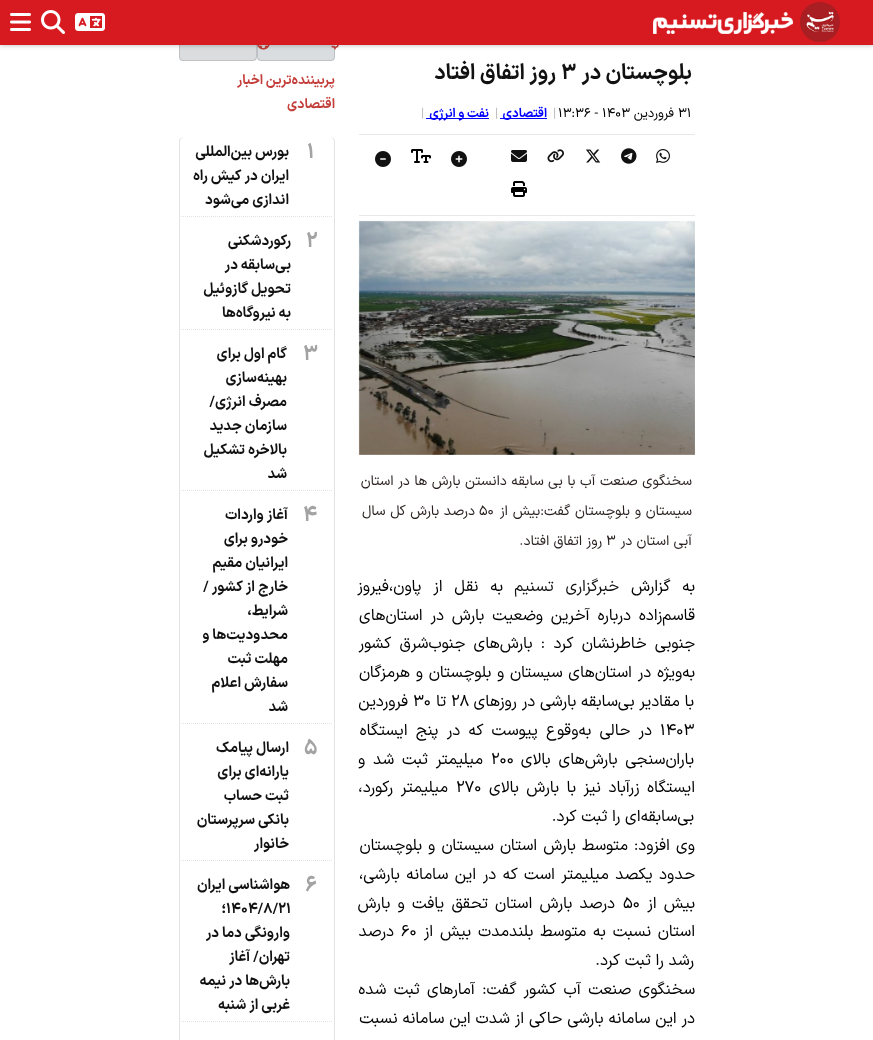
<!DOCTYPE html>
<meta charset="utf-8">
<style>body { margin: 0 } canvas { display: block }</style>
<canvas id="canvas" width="873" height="1040"></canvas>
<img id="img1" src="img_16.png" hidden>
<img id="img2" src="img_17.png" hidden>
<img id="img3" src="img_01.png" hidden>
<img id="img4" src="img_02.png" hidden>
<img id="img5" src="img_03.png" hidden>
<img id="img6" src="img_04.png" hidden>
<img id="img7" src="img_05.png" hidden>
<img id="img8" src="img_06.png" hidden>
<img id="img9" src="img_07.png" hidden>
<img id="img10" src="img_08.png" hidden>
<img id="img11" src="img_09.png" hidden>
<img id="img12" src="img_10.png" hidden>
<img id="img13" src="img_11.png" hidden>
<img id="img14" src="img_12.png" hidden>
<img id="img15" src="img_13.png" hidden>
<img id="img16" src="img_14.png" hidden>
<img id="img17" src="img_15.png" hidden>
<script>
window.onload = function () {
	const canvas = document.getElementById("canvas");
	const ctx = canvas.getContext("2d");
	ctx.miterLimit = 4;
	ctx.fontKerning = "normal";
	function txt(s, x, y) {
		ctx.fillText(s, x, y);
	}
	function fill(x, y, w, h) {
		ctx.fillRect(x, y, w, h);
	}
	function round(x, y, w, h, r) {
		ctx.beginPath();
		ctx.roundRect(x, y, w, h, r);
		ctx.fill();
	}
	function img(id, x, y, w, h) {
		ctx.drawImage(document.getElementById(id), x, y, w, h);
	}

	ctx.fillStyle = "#FFFFFF";
	fill(0, 0, 873, 1040);
	ctx.fillStyle = "#DADDDF";
	round(257, 28, 78, 33, 4);
	ctx.beginPath();
	ctx.roundRect(257.5, 28.5, 77, 32, 3.5);
	ctx.strokeStyle = "rgba(108, 117, 125, 0.25)";
	ctx.stroke();
	img("img1", 331, 45, 8, 5);
	ctx.fillStyle = "rgba(108, 117, 125, 0.25)";
	round(179, 28, 78, 33, 4);
	ctx.beginPath();
	ctx.roundRect(179.5, 28.5, 77, 32, 3.5);
	ctx.stroke();
	img("img2", 257, 45, 13, 5);
	ctx.fillStyle = "rgba(0, 0, 0, 0.2)";
	ctx.filter = "blur(2px)";
	ctx.beginPath();
	ctx.rect(0, 1, 873, 45);
	ctx.fill();
	ctx.filter = "none";
	ctx.fillStyle = "#D71920";
	fill(0, 0, 873, 45);
	ctx.fillStyle = "#A91E22";
	ctx.beginPath();
	ctx.arc(820, 22, 20, 0, Math.PI * 2);
	ctx.fill();
	img("img3", 806, 11, 29, 22);
	img("img4", 653, 12, 140, 22);
	img("img5", 75, 13, 30, 18);
	img("img6", 41, 10, 24, 24);
	img("img7", 10, 13, 21, 18);
	ctx.fillStyle = "#0000FF";
	fill(500, 118, 47, 1);
	fill(426, 118, 63, 1);
	ctx.fillStyle = "#E8E8E8";
	fill(359, 134, 336, 1);
	fill(359, 215, 336, 1);
	img("img8", 656, 149, 14, 14);
	img("img9", 621, 148, 16, 16);
	img("img10", 586, 149, 15, 14);
	img("img11", 547, 149, 17, 14);
	img("img12", 511, 150, 16, 12);
	img("img13", 511, 181, 16, 16);
	img("img14", 451, 151, 16, 16);
	img("img15", 411, 149, 20, 14);
	img("img16", 375, 151, 16, 16);
	img("img17", 358, 220, 337, 235);
	ctx.fillStyle = "#E3E3E3";
	ctx.beginPath();
	ctx.moveTo(184, 137);
	ctx.lineTo(330, 137);
	ctx.bezierCurveTo(333, 137, 335, 139, 335, 142);
	ctx.lineTo(335, 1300);
	ctx.bezierCurveTo(335, 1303, 333, 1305, 330, 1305);
	ctx.lineTo(184, 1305);
	ctx.bezierCurveTo(181, 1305, 179, 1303, 179, 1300);
	ctx.lineTo(179, 142);
	ctx.bezierCurveTo(179, 139, 181, 137, 184, 137);
	ctx.closePath();
	ctx.moveTo(184, 137);
	ctx.lineTo(330, 137);
	ctx.bezierCurveTo(332, 137, 334, 139, 334, 142);
	ctx.lineTo(334, 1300);
	ctx.bezierCurveTo(334, 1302, 332, 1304, 330, 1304);
	ctx.lineTo(184, 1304);
	ctx.bezierCurveTo(182, 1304, 180, 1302, 180, 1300);
	ctx.lineTo(180, 142);
	ctx.bezierCurveTo(180, 139, 182, 137, 184, 137);
	ctx.closePath();
	ctx.fill("evenodd");
	ctx.beginPath();
	ctx.moveTo(181, 216.5);
	ctx.lineTo(333, 216.5);
	ctx.strokeStyle = "#E3E3E3";
	ctx.setLineDash([1, 1]);
	ctx.stroke();
	ctx.beginPath();
	ctx.moveTo(181, 329.5);
	ctx.lineTo(333, 329.5);
	ctx.stroke();
	ctx.beginPath();
	ctx.moveTo(181, 490.5);
	ctx.lineTo(333, 490.5);
	ctx.stroke();
	ctx.beginPath();
	ctx.moveTo(181, 723.5);
	ctx.lineTo(333, 723.5);
	ctx.stroke();
	ctx.beginPath();
	ctx.moveTo(181, 860.5);
	ctx.lineTo(333, 860.5);
	ctx.stroke();
	ctx.beginPath();
	ctx.moveTo(181, 1021.5);
	ctx.lineTo(333, 1021.5);
	ctx.stroke();
	ctx.direction = "rtl";
	ctx.font = "bold 21.5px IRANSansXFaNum";
	ctx.fillStyle = "#111111";
	txt("بلوچستان در", 692, 79);
	ctx.direction = "ltr";
	txt("3", 561, 79);
	ctx.direction = "rtl";
	txt("روز اتفاق افتاد", 556, 79);
	ctx.direction = "ltr";
	ctx.font = "13px IRANSansXFaNum";
	ctx.fillStyle = "#000000";
	txt("31", 678, 117);
	ctx.direction = "rtl";
	txt("فروردين", 674, 117);
	ctx.direction = "ltr";
	txt("13:36 - 1403", 558, 117);
	ctx.fillStyle = "#BBBBBB";
	txt("|", 553, 117);
	ctx.direction = "rtl";
	ctx.font = "bold 12.5px IRANSansXFaNum";
	ctx.fillStyle = "#0000FF";
	txt("اقتصادی", 547, 117);
	ctx.direction = "ltr";
	ctx.font = "13px IRANSansXFaNum";
	ctx.fillStyle = "#BBBBBB";
	txt("|", 495, 117);
	ctx.direction = "rtl";
	ctx.font = "bold 12.5px IRANSansXFaNum";
	ctx.fillStyle = "#0000FF";
	txt("نفت و انرژی", 489, 117);
	ctx.direction = "ltr";
	ctx.font = "13px IRANSansXFaNum";
	ctx.fillStyle = "#BBBBBB";
	txt("|", 421, 117);
	ctx.wordSpacing = "0.25px";
	ctx.direction = "rtl";
	ctx.font = "14.1px IRANSansXFaNum";
	ctx.fillStyle = "#281E1E";
	txt("سخنگوی صنعت آب با بی سابقه دانستن بارش ها در استان", 692, 485);
	ctx.wordSpacing = "0.5px";
	txt("سیستان و بلوچستان گفت:بیش از", 692, 515);
	ctx.wordSpacing = "0px";
	ctx.direction = "ltr";
	txt("50", 479, 515);
	ctx.wordSpacing = "0.5px";
	ctx.direction = "rtl";
	txt("درصد بارش کل سال", 475, 515);
	ctx.wordSpacing = "0px";
	txt("آبی استان در", 692, 545);
	ctx.direction = "ltr";
	txt("3", 606, 545);
	ctx.direction = "rtl";
	txt("روز اتفاق افتاد.", 602, 545);
	ctx.wordSpacing = "7px";
	ctx.font = "16px IRANSansXFaNum";
	ctx.fillStyle = "#000000";
	txt("به گزارش", 695, 591);
	ctx.fillStyle = "#111111";
	txt("خبرگزاری تسنیم", 619, 591);
	ctx.fillStyle = "#000000";
	txt("به نقل از پاون،فیروز", 503, 591);
	ctx.wordSpacing = "3px";
	txt("قاسم‌زاده درباره آخرین وضعیت بارش در استان‌های", 695, 620);
	ctx.wordSpacing = "3.5px";
	txt("جنوبی خاطرنشان کرد : بارش‌های جنوب‌شرق کشور", 695, 648);
	ctx.wordSpacing = "1px";
	txt("به‌ویژه در استان‌های سیستان و بلوچستان و هرمزگان", 695, 677);
	ctx.wordSpacing = "0px";
	txt("با مقادیر بی‌سابقه بارشی در روزهای", 694, 706);
	ctx.direction = "ltr";
	txt("28", 451, 706);
	ctx.direction = "rtl";
	txt("تا", 446, 706);
	ctx.direction = "ltr";
	txt("30", 413, 706);
	ctx.direction = "rtl";
	txt("فروردین", 408, 706);
	ctx.direction = "ltr";
	txt("1403", 660, 735);
	ctx.wordSpacing = "3.5px";
	ctx.direction = "rtl";
	txt("در حالی به‌وقوع پیوست که در پنج ایستگاه", 652, 735);
	ctx.wordSpacing = "3px";
	txt("باران‌سنجی بارش‌های بالای", 694, 764);
	ctx.wordSpacing = "0px";
	ctx.direction = "ltr";
	txt("200", 491, 764);
	ctx.wordSpacing = "3px";
	ctx.direction = "rtl";
	txt("میلیمتر ثبت شد و", 483, 764);
	ctx.wordSpacing = "2.75px";
	txt("ایستگاه زرآباد نیز با بارش بالای", 695, 792);
	ctx.wordSpacing = "0px";
	ctx.direction = "ltr";
	txt("270", 456, 792);
	ctx.wordSpacing = "2.75px";
	ctx.direction = "rtl";
	txt("میلیمتر رکورد،", 448, 792);
	ctx.wordSpacing = "0px";
	txt("بی‌سابقه‌ای را ثبت کرد.", 694, 821);
	ctx.wordSpacing = "1.25px";
	txt("وی افزود: متوسط بارش استان سیستان و بلوچستان", 695, 850);
	ctx.wordSpacing = "1.75px";
	txt("حدود یکصد میلیمتر است که در این سامانه بارشی،", 695, 879);
	ctx.wordSpacing = "2.5px";
	txt("بیش از", 695, 908);
	ctx.wordSpacing = "0px";
	ctx.direction = "ltr";
	txt("50", 623, 908);
	ctx.wordSpacing = "2.5px";
	ctx.direction = "rtl";
	txt("درصد بارش استان تحقق یافت و بارش", 615, 908);
	ctx.wordSpacing = "2px";
	txt("استان نسبت به متوسط بلندمدت بیش از", 695, 936);
	ctx.wordSpacing = "0px";
	ctx.direction = "ltr";
	txt("60", 401, 936);
	ctx.direction = "rtl";
	txt("درصد", 394, 936);
	txt("رشد را ثبت کرد.", 694, 965);
	ctx.wordSpacing = "2.5px";
	txt("سخنگوی صنعت آب کشور گفت: آمارهای ثبت شده", 695, 994);
	ctx.wordSpacing = "0.1px";
	txt("در این سامانه بارشی حاکی از شدت این سامانه نسبت", 695, 1023);
	ctx.wordSpacing = "0px";
	ctx.font = "bold 13.5px IRANSansXFaNum";
	ctx.fillStyle = "#C33E3A";
	txt("پربیننده‌ترین اخبار", 335, 84);
	txt("اقتصادی", 335, 108);
	ctx.direction = "ltr";
	ctx.font = "bold 21px IRANSansXFaNum";
	ctx.fillStyle = "#A3A3A3";
	txt("1", 307, 158);
	ctx.direction = "rtl";
	ctx.font = "bold 14.5px IRANSansXFaNum";
	ctx.fillStyle = "#111111";
	txt("بورس بین‌المللی", 289, 156);
	txt("ایران در کیش راه", 289, 180);
	txt("اندازی می‌شود", 289, 204);
	ctx.direction = "ltr";
	ctx.font = "bold 21px IRANSansXFaNum";
	ctx.fillStyle = "#A3A3A3";
	txt("2", 306, 247);
	ctx.direction = "rtl";
	ctx.font = "bold 14.5px IRANSansXFaNum";
	ctx.fillStyle = "#111111";
	txt("رکوردشکنی", 291, 245);
	txt("بی‌سابقه در", 291, 269);
	txt("تحویل گازوئیل", 291, 293);
	txt("به نیروگاه‌ها", 291, 317);
	ctx.direction = "ltr";
	ctx.font = "bold 21px IRANSansXFaNum";
	ctx.fillStyle = "#A3A3A3";
	txt("3", 303, 360);
	ctx.direction = "rtl";
	ctx.font = "bold 14.5px IRANSansXFaNum";
	ctx.fillStyle = "#111111";
	txt("گام اول برای", 287, 358);
	txt("بهینه‌سازی", 287, 382);
	txt("مصرف انرژی/", 287, 406);
	txt("سازمان جدید", 287, 430);
	txt("بالاخره تشکیل", 287, 454);
	txt("شد", 287, 478);
	ctx.direction = "ltr";
	ctx.font = "bold 21px IRANSansXFaNum";
	ctx.fillStyle = "#A3A3A3";
	txt("4", 303, 521);
	ctx.direction = "rtl";
	ctx.font = "bold 14.5px IRANSansXFaNum";
	ctx.fillStyle = "#111111";
	txt("آغاز واردات", 288, 519);
	txt("خودرو برای", 288, 543);
	txt("ایرانیان مقیم", 288, 567);
	txt("خارج از کشور /", 288, 591);
	txt("شرایط،", 288, 615);
	txt("محدودیت‌ها و", 288, 639);
	txt("مهلت ثبت", 288, 663);
	txt("سفارش اعلام", 288, 687);
	txt("شد", 288, 711);
	ctx.direction = "ltr";
	ctx.font = "bold 21px IRANSansXFaNum";
	ctx.fillStyle = "#A3A3A3";
	txt("5", 304, 754);
	ctx.direction = "rtl";
	ctx.font = "bold 14.5px IRANSansXFaNum";
	ctx.fillStyle = "#111111";
	txt("ارسال پیامک", 289, 752);
	txt("یارانه‌ای برای", 289, 776);
	txt("ثبت حساب", 289, 800);
	txt("بانکی سرپرستان", 289, 824);
	txt("خانوار", 289, 848);
	ctx.direction = "ltr";
	ctx.font = "bold 21px IRANSansXFaNum";
	ctx.fillStyle = "#A3A3A3";
	txt("6", 305, 891);
	ctx.direction = "rtl";
	ctx.font = "bold 14.5px IRANSansXFaNum";
	ctx.fillStyle = "#111111";
	txt("هواشناسی ایران", 290, 889);
	ctx.direction = "ltr";
	txt("1404/8/21", 226, 913);
	ctx.direction = "rtl";
	txt("؛", 226, 913);
	txt("وارونگی دما در", 290, 937);
	txt("تهران/ آغاز", 290, 961);
	txt("بارش‌ها در نیمه", 290, 985);
	txt("غربی از شنبه", 290, 1009);
};
</script>
